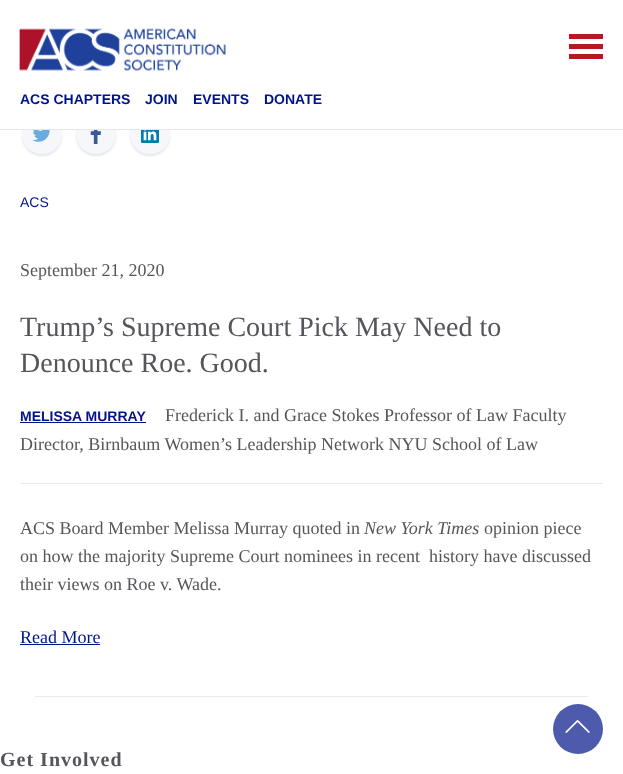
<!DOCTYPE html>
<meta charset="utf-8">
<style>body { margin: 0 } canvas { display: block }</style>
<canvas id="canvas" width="623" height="774"></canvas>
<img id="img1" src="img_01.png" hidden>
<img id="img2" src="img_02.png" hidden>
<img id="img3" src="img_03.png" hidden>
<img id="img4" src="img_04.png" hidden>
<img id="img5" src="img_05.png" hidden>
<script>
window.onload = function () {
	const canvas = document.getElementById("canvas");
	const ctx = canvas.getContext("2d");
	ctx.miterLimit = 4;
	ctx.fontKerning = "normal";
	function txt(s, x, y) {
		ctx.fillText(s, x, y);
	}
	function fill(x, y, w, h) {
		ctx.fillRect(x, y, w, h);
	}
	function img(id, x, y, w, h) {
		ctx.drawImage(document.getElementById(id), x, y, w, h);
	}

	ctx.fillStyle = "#FFFFFF";
	fill(0, 0, 623, 774);
	ctx.fillStyle = "#E6E6E6";
	fill(0, 129, 623, 1);
	img("img1", 19, 28, 207, 43);
	ctx.fillStyle = "#B5181F";
	fill(569, 34, 34, 5);
	fill(569, 44, 34, 5);
	fill(569, 54, 34, 5);
	img("img2", 21, 130, 42, 27);
	img("img3", 75, 130, 42, 27);
	img("img4", 129, 130, 42, 27);
	ctx.fillStyle = "#001489";
	fill(20, 422, 126, 1);
	ctx.fillStyle = "#EAEAEA";
	fill(20, 483, 583, 1);
	ctx.fillStyle = "#001489";
	fill(20, 644, 80, 1);
	ctx.fillStyle = "#EAEAEA";
	fill(35, 696, 553, 1);
	ctx.fillStyle = "#4D5BAC";
	ctx.beginPath();
	ctx.arc(578, 729, 25, 0, Math.PI * 2);
	ctx.fill();
	img("img5", 565, 720, 25, 13);
	ctx.font = "bold 14px Liberation Sans";
	ctx.fillStyle = "#001489";
	txt("ACS CHAPTERS", 20, 104);
	txt("JOIN", 145, 104);
	txt("EVENTS", 193, 104);
	txt("DONATE", 264, 104);
	ctx.font = "14px Liberation Sans";
	txt("ACS", 20, 207);
	ctx.font = "18px Liberation Serif";
	ctx.fillStyle = "#55565B";
	txt("September 21, 2020", 20, 276);
	ctx.font = "28px Liberation Serif";
	txt("Trump’s Supreme Court Pick May Need to", 20, 336);
	txt("Denounce Roe. Good.", 20, 372);
	ctx.font = "bold 14px Liberation Sans";
	ctx.fillStyle = "#001489";
	txt("MELISSA MURRAY", 20, 421);
	ctx.font = "18px Liberation Serif";
	ctx.fillStyle = "#55565B";
	txt("Frederick I. and Grace Stokes Professor of Law Faculty", 165, 421);
	txt("Director, Birnbaum Women’s Leadership Network NYU School of Law", 20, 450);
	txt("ACS Board Member Melissa Murray quoted in", 20, 534);
	ctx.font = "italic 18px Liberation Serif";
	txt("New York Times", 364, 534);
	ctx.font = "18px Liberation Serif";
	txt("opinion piece", 484, 534);
	txt("on how the majority Supreme Court nominees in recent  history have discussed", 20, 562);
	txt("their views on Roe v. Wade.", 20, 590);
	ctx.fillStyle = "#001489";
	txt("Read More", 20, 643);
	ctx.letterSpacing = "1px";
	ctx.font = "bold 20px Liberation Serif";
	ctx.fillStyle = "#55565B";
	txt("Get Involved", 0, 766);
};
</script>
